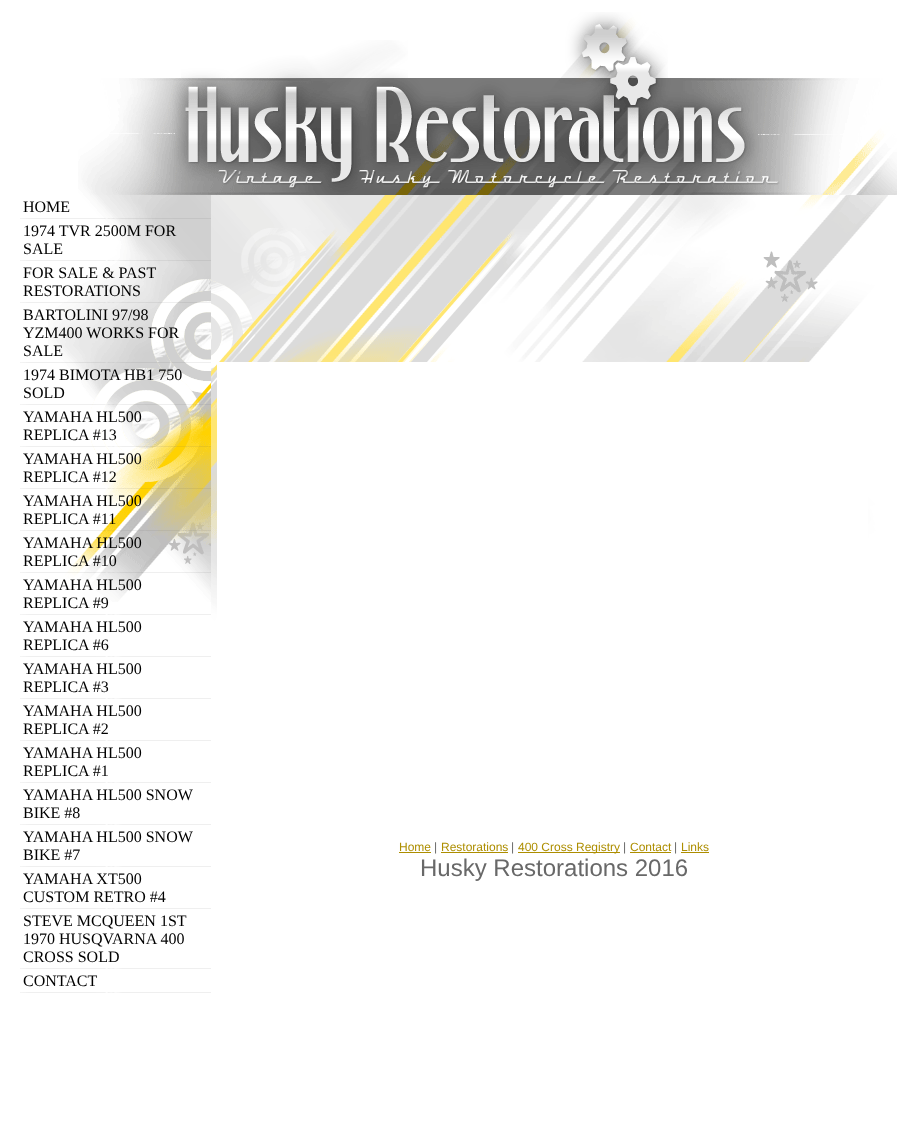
<!DOCTYPE html>
<meta charset="utf-8">
<style>body { margin: 0 } canvas { display: block }</style>
<canvas id="canvas" width="897" height="1145"></canvas>
<img id="img1" src="img_01.png" hidden>
<img id="img2" src="img_02.png" hidden>
<img id="img3" src="img_03.png" hidden>
<img id="img4" src="img_04.png" hidden>
<img id="img5" src="img_05.png" hidden>
<img id="img6" src="img_06.png" hidden>
<img id="img7" src="img_07.png" hidden>
<img id="img8" src="img_08.png" hidden>
<img id="img9" src="img_09.png" hidden>
<img id="img10" src="img_10.png" hidden>
<img id="img11" src="img_11.png" hidden>
<img id="img12" src="img_12.png" hidden>
<img id="img13" src="img_13.png" hidden>
<img id="img14" src="img_14.png" hidden>
<img id="img15" src="img_15.png" hidden>
<script>
window.onload = function () {
	const canvas = document.getElementById("canvas");
	const ctx = canvas.getContext("2d");
	ctx.miterLimit = 4;
	ctx.fontKerning = "normal";
	function txt(s, x, y) {
		ctx.fillText(s, x, y);
	}
	function fill(x, y, w, h) {
		ctx.fillRect(x, y, w, h);
	}
	function img(id, x, y, w, h) {
		ctx.drawImage(document.getElementById(id), x, y, w, h);
	}

	ctx.fillStyle = "#FFFFFF";
	fill(0, 0, 897, 1145);
	img("img1", 181, 40, 227, 38);
	img("img2", 561, 12, 107, 66);
	img("img3", 78, 78, 819, 117);
	img("img4", 48, 195, 163, 407);
	img("img5", 20, 218, 191, 1);
	img("img6", 20, 260, 191, 1);
	img("img7", 20, 302, 191, 1);
	img("img8", 20, 362, 191, 1);
	img("img9", 20, 404, 191, 1);
	img("img10", 20, 446, 191, 1);
	img("img11", 20, 476, 191, 13);
	img("img12", 20, 507, 191, 24);
	img("img13", 20, 572, 191, 1);
	img("img14", 20, 614, 191, 1);
	img("img14", 20, 656, 191, 1);
	img("img14", 20, 698, 191, 1);
	img("img14", 20, 740, 191, 1);
	img("img14", 20, 782, 191, 1);
	img("img14", 20, 824, 191, 1);
	img("img14", 20, 866, 191, 1);
	img("img14", 20, 908, 191, 1);
	img("img14", 20, 968, 191, 1);
	img("img14", 20, 992, 191, 1);
	img("img15", 211, 195, 677, 537);
	fill(217, 362, 651, 370);
	ctx.fillStyle = "#AD8E00";
	fill(399, 852, 32, 1);
	fill(441, 852, 67, 1);
	fill(518, 852, 102, 1);
	fill(630, 852, 41, 1);
	fill(681, 852, 28, 1);
	ctx.font = "16px Liberation Serif";
	ctx.fillStyle = "#000000";
	txt("HOME", 23, 212);
	txt("1974 TVR 2500M FOR", 23, 236);
	txt("SALE", 23, 254);
	txt("FOR SALE & PAST", 23, 278);
	txt("RESTORATIONS", 23, 296);
	txt("BARTOLINI 97/98", 23, 320);
	txt("YZM400 WORKS FOR", 23, 338);
	txt("SALE", 23, 356);
	txt("1974 BIMOTA HB1 750", 23, 380);
	txt("SOLD", 23, 398);
	txt("YAMAHA HL500", 23, 422);
	txt("REPLICA #13", 23, 440);
	txt("YAMAHA HL500", 23, 464);
	txt("REPLICA #12", 23, 482);
	txt("YAMAHA HL500", 23, 506);
	txt("REPLICA #11", 23, 524);
	txt("YAMAHA HL500", 23, 548);
	txt("REPLICA #10", 23, 566);
	txt("YAMAHA HL500", 23, 590);
	txt("REPLICA #9", 23, 608);
	txt("YAMAHA HL500", 23, 632);
	txt("REPLICA #6", 23, 650);
	txt("YAMAHA HL500", 23, 674);
	txt("REPLICA #3", 23, 692);
	txt("YAMAHA HL500", 23, 716);
	txt("REPLICA #2", 23, 734);
	txt("YAMAHA HL500", 23, 758);
	txt("REPLICA #1", 23, 776);
	txt("YAMAHA HL500 SNOW", 23, 800);
	txt("BIKE #8", 23, 818);
	txt("YAMAHA HL500 SNOW", 23, 842);
	txt("BIKE #7", 23, 860);
	txt("YAMAHA XT500", 23, 884);
	txt("CUSTOM RETRO #4", 23, 902);
	txt("STEVE MCQUEEN 1ST", 23, 926);
	txt("1970 HUSQVARNA 400", 23, 944);
	txt("CROSS SOLD", 23, 962);
	txt("CONTACT", 23, 986);
	ctx.font = "12px Liberation Sans";
	ctx.fillStyle = "#AD8E00";
	txt("Home", 399, 851);
	ctx.fillStyle = "#686868";
	txt("|", 434, 851);
	ctx.fillStyle = "#AD8E00";
	txt("Restorations", 441, 851);
	ctx.fillStyle = "#686868";
	txt("|", 511, 851);
	ctx.fillStyle = "#AD8E00";
	txt("400 Cross Registry", 518, 851);
	ctx.fillStyle = "#686868";
	txt("|", 623, 851);
	ctx.fillStyle = "#AD8E00";
	txt("Contact", 630, 851);
	ctx.fillStyle = "#686868";
	txt("|", 674, 851);
	ctx.fillStyle = "#AD8E00";
	txt("Links", 681, 851);
	ctx.font = "24px Liberation Sans";
	ctx.fillStyle = "#686868";
	txt("Husky Restorations 2016", 420, 876);
};
</script>
